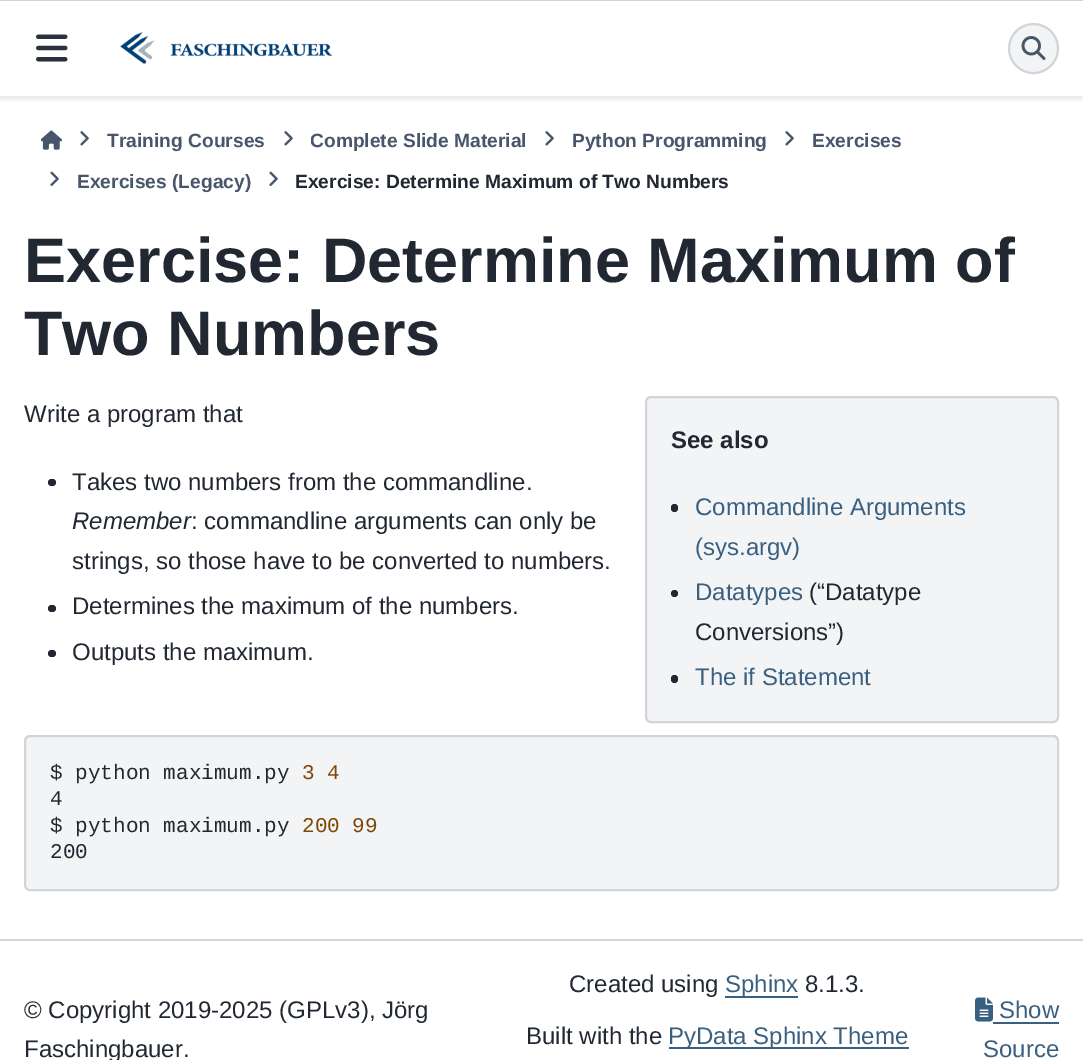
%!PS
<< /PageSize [1083 1060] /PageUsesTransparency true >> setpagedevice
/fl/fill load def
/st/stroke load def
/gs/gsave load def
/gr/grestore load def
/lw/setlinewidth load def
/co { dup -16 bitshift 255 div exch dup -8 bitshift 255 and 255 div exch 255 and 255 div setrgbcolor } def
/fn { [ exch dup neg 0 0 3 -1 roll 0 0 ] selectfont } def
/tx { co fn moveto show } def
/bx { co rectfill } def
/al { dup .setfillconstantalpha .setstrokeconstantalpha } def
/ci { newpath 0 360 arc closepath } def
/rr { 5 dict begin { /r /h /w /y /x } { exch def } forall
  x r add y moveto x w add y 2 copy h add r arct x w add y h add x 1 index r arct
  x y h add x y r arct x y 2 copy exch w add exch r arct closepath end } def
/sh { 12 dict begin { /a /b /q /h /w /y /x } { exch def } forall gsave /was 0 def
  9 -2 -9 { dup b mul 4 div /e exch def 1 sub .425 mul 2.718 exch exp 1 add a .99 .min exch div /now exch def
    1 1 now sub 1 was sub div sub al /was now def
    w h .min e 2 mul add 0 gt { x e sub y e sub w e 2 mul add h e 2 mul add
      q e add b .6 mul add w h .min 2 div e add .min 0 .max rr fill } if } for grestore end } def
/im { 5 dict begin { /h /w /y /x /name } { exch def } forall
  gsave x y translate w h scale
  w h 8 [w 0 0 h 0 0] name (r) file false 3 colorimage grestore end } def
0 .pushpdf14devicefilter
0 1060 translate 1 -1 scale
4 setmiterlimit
0 0 1083 1060 16#FFFFFF bx
gs
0 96 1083 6 rectclip
16#000000 co
0 3 1083 96 0 3 .1 sh
gr
(media/1.raw) 36 34 32 28 im
(media/2.raw) 120 32 212 32 im
16#F3F4F5 co
1033.5 48.5 24.5 ci gs fl gr
16#D1D5DA co
2 lw
st
(media/3.raw) 1021 36 25 24 im
0 0 1083 1 16#D1D5DA bx
(media/4.raw) 41 130 21 20 im
(media/5.raw) 80 131 9 15 im
(media/5.raw) 284 131 9 15 im
(media/5.raw) 545 131 9 15 im
(media/5.raw) 785 131 9 15 im
(media/6.raw) 50 171 9 15 im
(media/6.raw) 269 171 9 15 im
16#222832 co
48 479 8 7 3.5 rr fl
48 605 8 7 3.5 rr fl
48 650 8 7 3.5 rr fl
16#F3F4F5 co
646 397 412 325 5 rr gs fl gr
16#D1D5DA co
st
16#222832 co
671 504 7 8 3.5 rr fl
674.5 593.5 3.5 ci fl
671 675 7 8 3.5 rr fl
16#F3F4F5 co
25 736 1033 154 5 rr gs fl gr
16#D1D5DA co
st
0 939 1083 2 16#D1D5DA bx
725 996 73 2 16#3A6081 bx
669 1047 240 2 16#3A6081 bx
(media/7.raw) 975 997 18 25 im
993 1022 66 2 16#3A6081 bx
(Training Courses) 107 147 /LiberationSans-Bold 19.2 16#48566B tx
gs
311 125 216 31 rectclip
(Complete Slide Material) 310 147 /LiberationSans-Bold 19.2 16#48566B tx
gr
(Python Programming) 572 147 /LiberationSans-Bold 19.2 16#48566B tx
(Exercises) 812 147 /LiberationSans-Bold 19.2 16#48566B tx
(Exercises \(Legacy\)) 77 188 /LiberationSans-Bold 19.2 16#48566B tx
(Exercise: Determine Maximum of Two Numbers) 295 188 /LiberationSans-Bold 19.2 16#222832 tx
(Exercise: Determine Maximum of) 24 282 /LiberationSans-Bold 63 16#222832 tx
(Two Numbers) 24 355 /LiberationSans-Bold 63 16#222832 tx
(Write a program that) 24 422 /LiberationSans-Regular 24 16#222832 tx
(Takes two numbers from the commandline.) 72 490 /LiberationSans-Regular 24 16#222832 tx
(Remember) 72 529 /LiberationSans-Italic 24 16#222832 tx
(: commandline arguments can only be) 191 529 /LiberationSans-Regular 24 16#222832 tx
(strings, so those have to be converted to numbers.) 72 569 /LiberationSans-Regular 24 16#222832 tx
(Determines the maximum of the numbers.) 72 614 /LiberationSans-Regular 24 16#222832 tx
(Outputs the maximum.) 72 660 /LiberationSans-Regular 24 16#222832 tx
(See also) 671 448 /LiberationSans-Bold 24 16#222832 tx
(Commandline Arguments) 695 515 /LiberationSans-Regular 24 16#3A6081 tx
(\(sys.argv\)) 695 555 /LiberationSans-Regular 24 16#3A6081 tx
(Datatypes) 695 600 /LiberationSans-Regular 24 16#3A6081 tx
(\(“Datatype) 809 600 /LiberationSans-Regular 24 16#222832 tx
(Conversions”\)) 695 640 /LiberationSans-Regular 24 16#222832 tx
(The if Statement) 695 685 /LiberationSans-Regular 24 16#3A6081 tx
($ python maximum.py) 50 779 /LiberationMono-Regular 21 16#222832 tx
(3 4) 302 779 /LiberationMono-Regular 21 16#7F4707 tx
(4) 50 805 /LiberationMono-Regular 21 16#222832 tx
($ python maximum.py) 50 832 /LiberationMono-Regular 21 16#222832 tx
(200 99) 302 832 /LiberationMono-Regular 21 16#7F4707 tx
(200) 50 858 /LiberationMono-Regular 21 16#222832 tx
(© Copyright 2019-2025 \(GPLv3\), Jörg) 24 1018 /LiberationSans-Regular 24 16#222832 tx
(Faschingbauer.) 24 1057 /LiberationSans-Regular 24 16#222832 tx
(Created using) 569 992 /LiberationSans-Regular 24 16#222832 tx
(Sphinx) 725 992 /LiberationSans-Regular 24 16#3A6081 tx
(8.1.3.) 805 992 /LiberationSans-Regular 24 16#222832 tx
(Built with the) 526 1044 /LiberationSans-Regular 24 16#222832 tx
(PyData Sphinx Theme) 668 1044 /LiberationSans-Regular 24 16#3A6081 tx
(Show) 999 1018 /LiberationSans-Regular 24 16#3A6081 tx
(Source) 983 1057 /LiberationSans-Regular 24 16#3A6081 tx
.poppdf14devicefilter showpage
